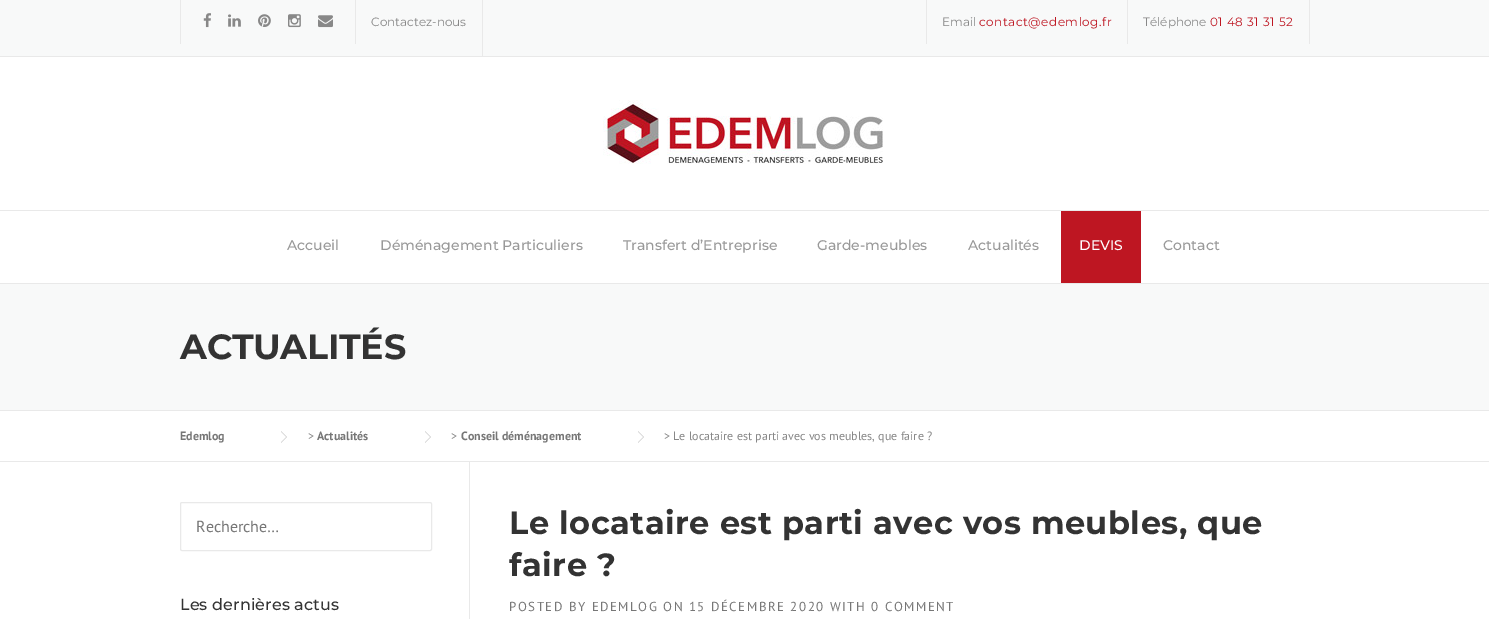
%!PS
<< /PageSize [1489 619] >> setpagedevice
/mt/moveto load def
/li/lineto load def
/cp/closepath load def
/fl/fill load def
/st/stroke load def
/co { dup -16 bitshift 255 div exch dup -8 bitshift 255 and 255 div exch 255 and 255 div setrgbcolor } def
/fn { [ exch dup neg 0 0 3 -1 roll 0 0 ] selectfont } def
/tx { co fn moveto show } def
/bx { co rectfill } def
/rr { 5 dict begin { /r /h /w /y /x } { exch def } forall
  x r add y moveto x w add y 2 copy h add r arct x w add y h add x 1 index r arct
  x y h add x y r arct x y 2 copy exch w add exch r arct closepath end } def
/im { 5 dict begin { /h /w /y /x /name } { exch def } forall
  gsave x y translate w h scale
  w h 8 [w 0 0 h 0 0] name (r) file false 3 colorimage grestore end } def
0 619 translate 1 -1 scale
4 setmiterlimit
0 0 1489 619 16#FFFFFF bx
0 0 1489 56 16#F8F9F9 bx
0 56 1489 1 16#E9E9E9 bx
355 0 1 44 16#E9E9E9 bx
180 0 1 44 16#E9E9E9 bx
(media/1.raw) 203 13 8 15 im
(media/2.raw) 228 14 13 13 im
(media/3.raw) 258 14 13 13 im
(media/4.raw) 288 14 13 14 im
(media/5.raw) 318 15 15 13 im
482 0 1 56 16#E9E9E9 bx
926 0 1 44 16#E9E9E9 bx
1309 0 1 44 16#E9E9E9 bx
1127 0 1 44 16#E9E9E9 bx
(media/6.raw) 603 100 280 64 im
0 210 1489 1 16#E9E9E9 bx
1061 211 80 72 16#BE1622 bx
0 284 1489 126 16#F8F9F9 bx
0 283 1489 1 16#E9E9E9 bx
0 410 1489 1 16#E9E9E9 bx
0 461 1489 1 16#E9E9E9 bx
16#CCCCCC co
281 443 mt 281 431 li 287 437 li cp fl
16#FFFFFF co
281 442 mt 281 432 li 286 437 li cp fl
16#CCCCCC co
425 443 mt 425 431 li 431 437 li cp fl
16#FFFFFF co
425 442 mt 425 432 li 430 437 li cp fl
16#CCCCCC co
638 443 mt 638 431 li 644 437 li cp fl
16#FFFFFF co
638 442 mt 638 432 li 643 437 li cp fl
16#E9E9E9 co
180.5 502.5 251 48 1.5 rr st
469 462 1 157 16#E9E9E9 bx
(Contactez-nous) 371 26 /Montserrat-Regular 12 16#888888 tx
(Email) 942 26 /Montserrat-Regular 12 16#888888 tx
16#BE1622 co
979 26 mt .5 0 (contact@edemlog.fr) ashow
(Téléphone) 1143 26 /Montserrat-Regular 12 16#888888 tx
16#BE1622 co
1210 26 mt .5 0 (01 48 31 31 52) ashow
(Accueil) 287 250 /Montserrat-Medium 14 16#999999 tx
(Déménagement Particuliers) 380 250 /Montserrat-Medium 14 16#999999 tx
(Transfert d’Entreprise) 623 250 /Montserrat-Medium 14 16#999999 tx
(Garde-meubles) 817 250 /Montserrat-Medium 14 16#999999 tx
(Actualités) 968 250 /Montserrat-Medium 14 16#999999 tx
(DEVIS) 1079 250 /Montserrat-Medium 14 16#FFFFFF tx
(Contact) 1163 250 /Montserrat-Medium 14 16#999999 tx
/Montserrat-Bold 35 fn
16#333333 co
180 359 mt -.25 0 (ACTUALITÉS) ashow
(Edemlog) 180 440 /PTSans-Bold 12 16#777777 tx
(>) 308 440 /PTSans-Regular 12 16#888888 tx
(Actualités) 317 440 /PTSans-Bold 12 16#777777 tx
(>) 451 440 /PTSans-Regular 12 16#888888 tx
(Conseil déménagement) 461 440 /PTSans-Bold 12 16#777777 tx
(> Le locataire est parti avec vos meubles, que faire ?) 664 440 /PTSans-Regular 12 16#888888 tx
(Recherche…) 196 532 /PTSans-Regular 16 16#777777 tx
/Montserrat-Medium 16 fn
16#333333 co
180 610 mt .1 0 (Les dernières actus) ashow
/Montserrat-Bold 32 fn
509 534 mt .5 0 (Le locataire est parti avec vos meubles, que) ashow
509 576 mt .5 0 (faire ?) ashow
/PTSans-Regular 13 fn
16#777777 co
509 611 mt 1.5 0 (POSTED BY EDEMLOG ON 15 DÉCEMBRE 2020 WITH 0 COMMENT) ashow
showpage
